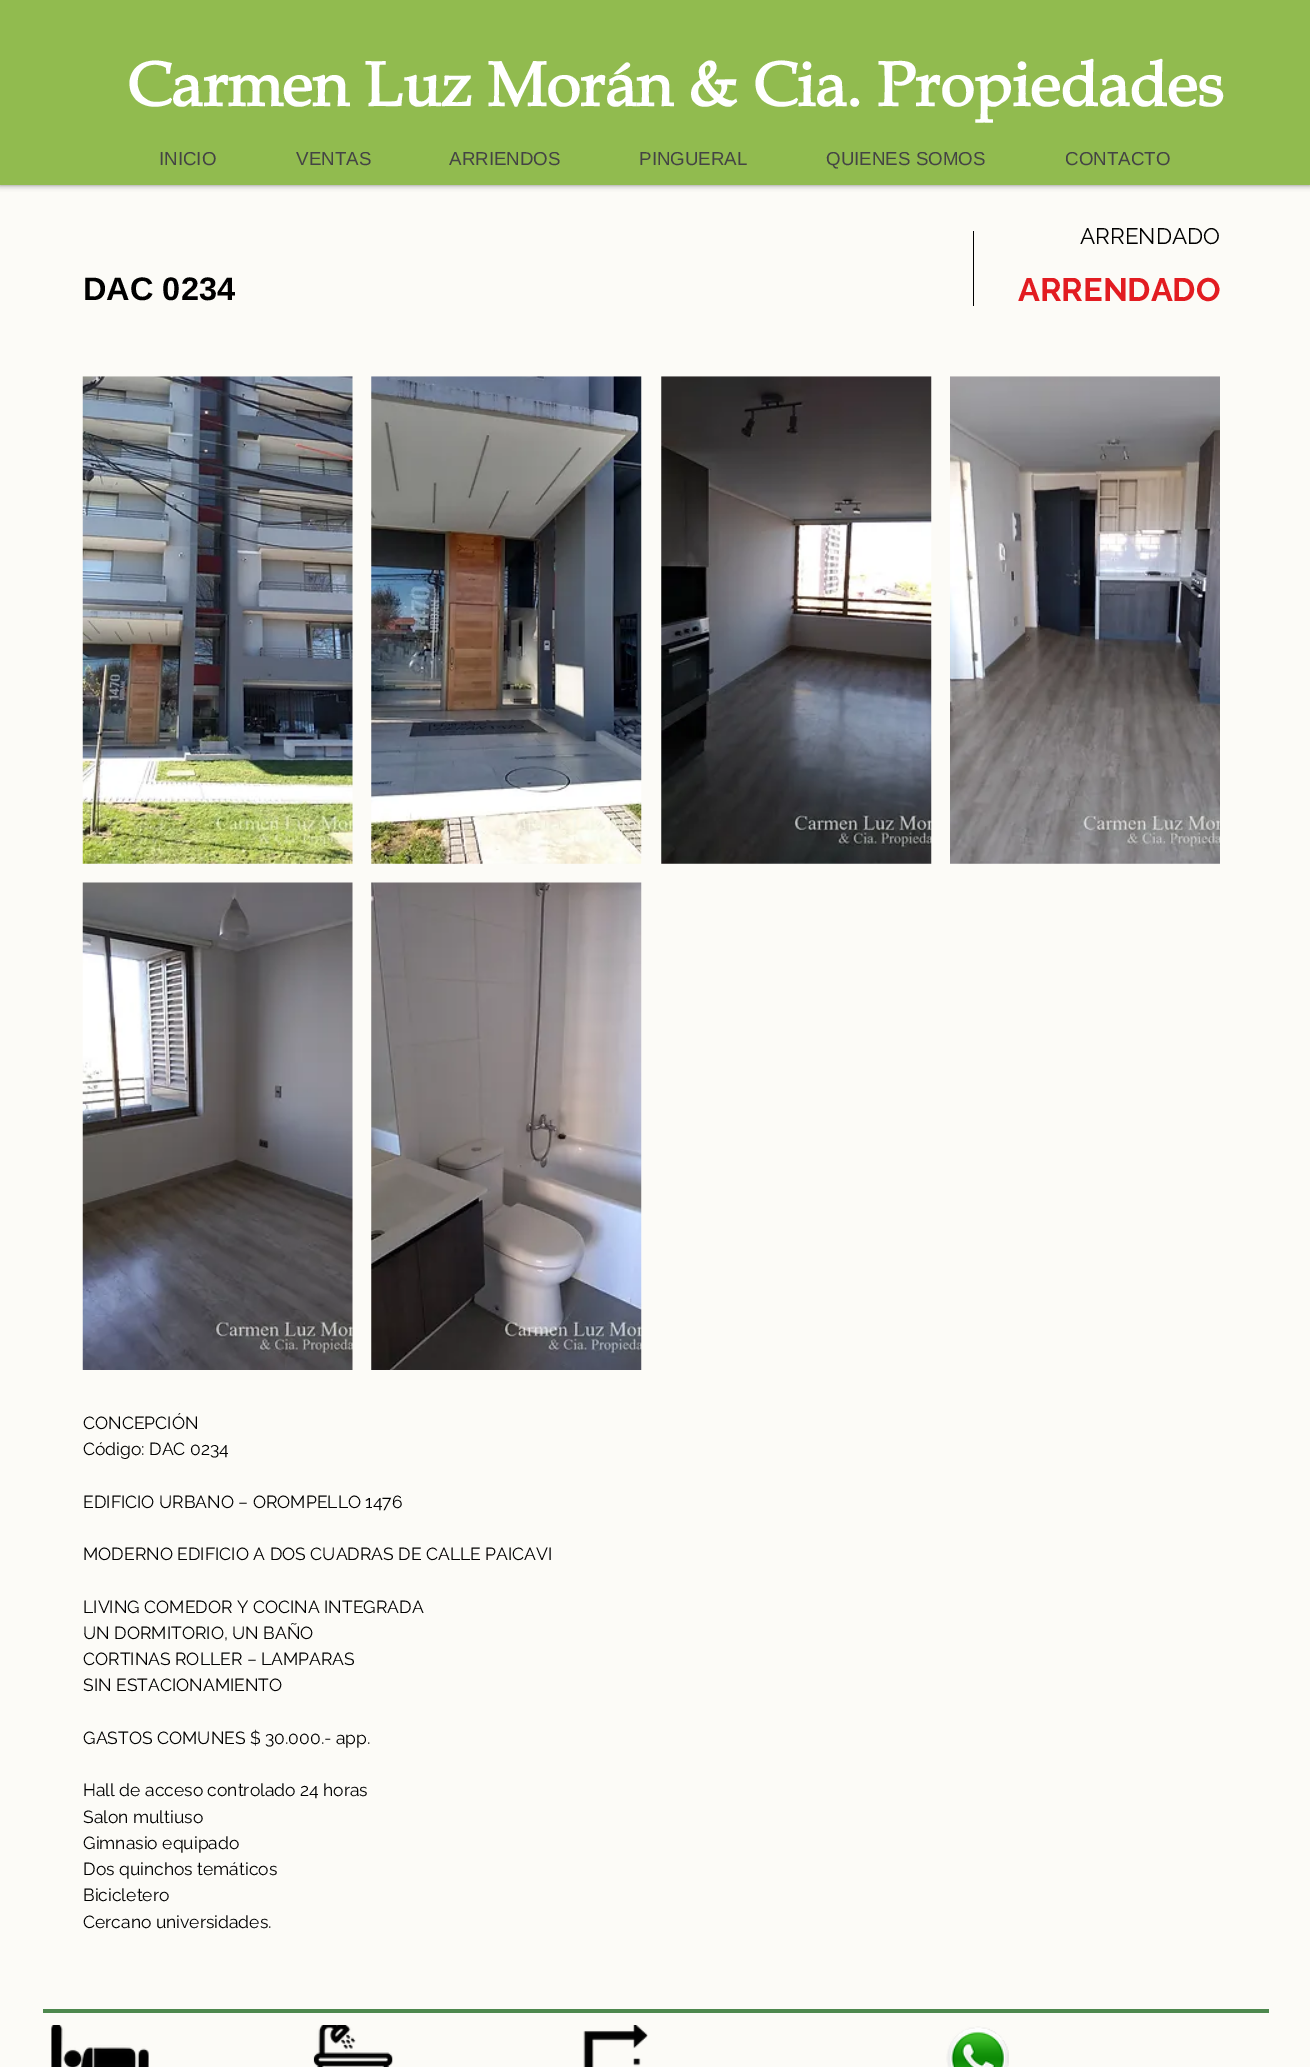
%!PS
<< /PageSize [1310 2067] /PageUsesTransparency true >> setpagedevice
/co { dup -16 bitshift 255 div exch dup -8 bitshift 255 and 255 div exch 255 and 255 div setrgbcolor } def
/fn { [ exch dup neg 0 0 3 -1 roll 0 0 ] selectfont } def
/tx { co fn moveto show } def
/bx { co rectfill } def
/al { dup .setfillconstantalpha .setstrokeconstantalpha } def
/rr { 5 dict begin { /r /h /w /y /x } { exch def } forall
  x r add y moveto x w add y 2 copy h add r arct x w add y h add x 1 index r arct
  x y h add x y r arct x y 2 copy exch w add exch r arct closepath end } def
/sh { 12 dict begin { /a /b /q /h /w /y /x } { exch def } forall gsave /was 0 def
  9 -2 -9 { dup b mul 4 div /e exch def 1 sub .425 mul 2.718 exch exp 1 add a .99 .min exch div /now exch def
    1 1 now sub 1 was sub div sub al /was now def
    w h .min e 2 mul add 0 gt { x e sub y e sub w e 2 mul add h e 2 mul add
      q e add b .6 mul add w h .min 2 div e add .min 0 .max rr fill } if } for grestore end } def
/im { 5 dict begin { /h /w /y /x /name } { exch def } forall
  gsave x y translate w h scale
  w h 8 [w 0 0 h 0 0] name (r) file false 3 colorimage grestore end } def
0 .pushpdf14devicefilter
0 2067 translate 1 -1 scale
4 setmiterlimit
0 0 1310 2067 16#FCFBF7 bx
16#000000 co
0 0 1310 185 0 3 .5 sh
0 0 1310 185 16#91BB4F bx
973 231 1 75 16#000000 bx
(media/1.raw) 82 376 271 488 im
(media/2.raw) 371 376 271 488 im
(media/3.raw) 661 376 271 488 im
(media/4.raw) 950 376 270 488 im
(media/5.raw) 82 882 271 488 im
(media/6.raw) 371 882 271 488 im
43 2009 1226 4 16#4D884E bx
(media/7.raw) 51 2025 98 42 im
(media/8.raw) 313 2025 80 42 im
(media/9.raw) 583 2025 65 42 im
(media/10.raw) 946 2026 63 41 im
(Carmen Luz Morán & Cia. Propiedades) 127 106 /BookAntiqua-Bold 62.5 16#FFFFFF tx
(INICIO) 159 165 /LiberationSans-Regular 18.75 16#444444 tx
(VENTAS) 296 165 /LiberationSans-Regular 18.75 16#444444 tx
(ARRIENDOS) 449 165 /LiberationSans-Regular 18.75 16#444444 tx
(PINGUERAL) 639 165 /LiberationSans-Regular 18.75 16#444444 tx
(QUIENES SOMOS) 826 165 /LiberationSans-Regular 18.75 16#444444 tx
(CONTACTO) 1065 165 /LiberationSans-Regular 18.75 16#444444 tx
(DAC 0234) 83 300 /LiberationSans-Bold 32.5 16#000000 tx
(ARRENDADO) 1080 244 /Raleway-Regular 22.5 16#000000 tx
(ARRENDADO) 1018 301 /Raleway-Bold 32.5 16#E21C21 tx
(CONCEPCIÓN) 83 1429 /Raleway-Regular 17.5 16#000000 tx
(Código: DAC 0234) 83 1455 /Raleway-Regular 17.5 16#000000 tx
(EDIFICIO URBANO – OROMPELLO 1476) 83 1508 /Raleway-Regular 17.5 16#000000 tx
(MODERNO EDIFICIO A DOS CUADRAS DE CALLE PAICAVI) 83 1560 /Raleway-Regular 17.5 16#000000 tx
(LIVING COMEDOR Y COCINA INTEGRADA) 83 1613 /Raleway-Regular 17.5 16#000000 tx
(UN DORMITORIO, UN BAÑO) 83 1639 /Raleway-Regular 17.5 16#000000 tx
(CORTINAS ROLLER – LAMPARAS) 83 1665 /Raleway-Regular 17.5 16#000000 tx
(SIN ESTACIONAMIENTO) 83 1691 /Raleway-Regular 17.5 16#000000 tx
(GASTOS COMUNES $ 30.000.- app.) 83 1744 /Raleway-Regular 17.5 16#000000 tx
(Hall de acceso controlado 24 horas) 83 1796 /Raleway-Regular 17.5 16#000000 tx
(Salon multiuso) 83 1823 /Raleway-Regular 17.5 16#000000 tx
(Gimnasio equipado) 83 1849 /Raleway-Regular 17.5 16#000000 tx
(Dos quinchos temáticos) 83 1875 /Raleway-Regular 17.5 16#000000 tx
(Bicicletero) 83 1901 /Raleway-Regular 17.5 16#000000 tx
(Cercano universidades.) 83 1928 /Raleway-Regular 17.5 16#000000 tx
.poppdf14devicefilter showpage
